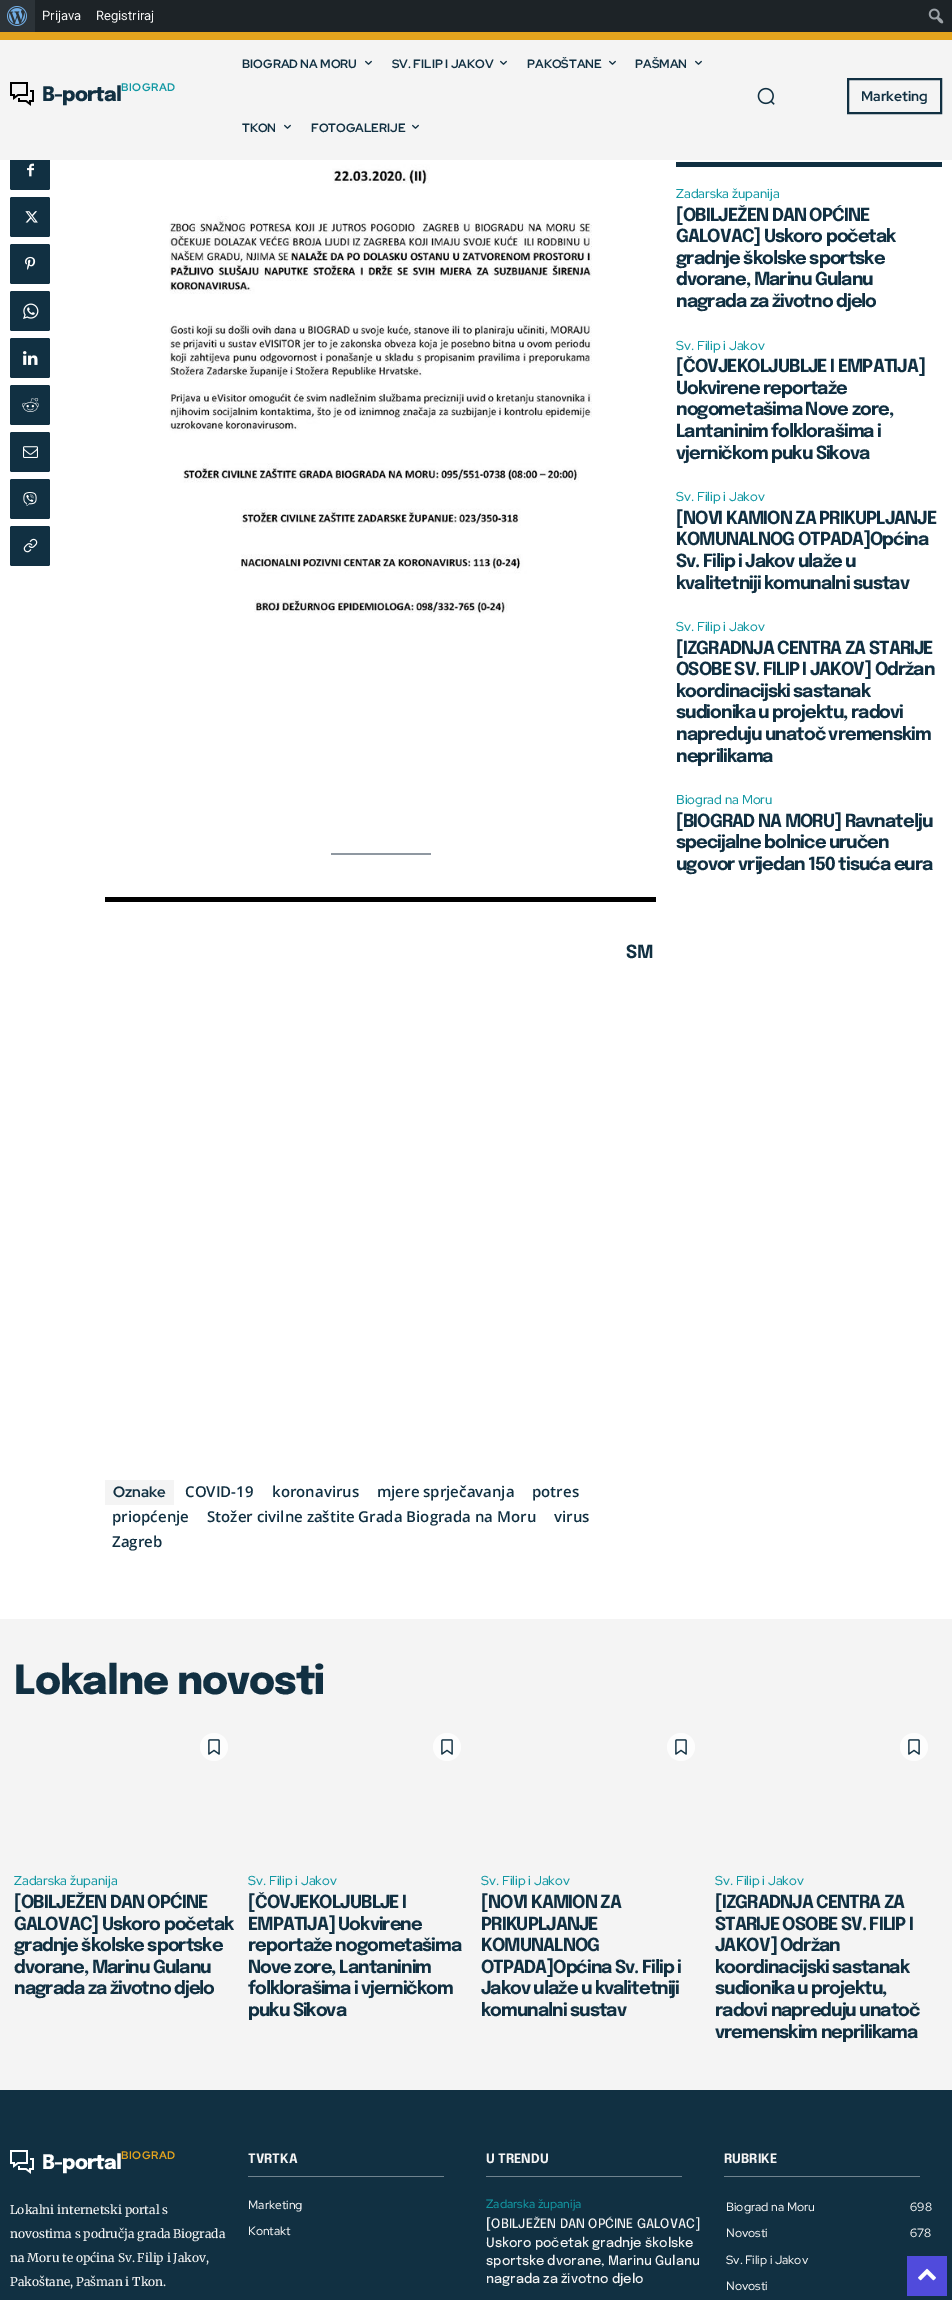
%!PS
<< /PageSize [952 2300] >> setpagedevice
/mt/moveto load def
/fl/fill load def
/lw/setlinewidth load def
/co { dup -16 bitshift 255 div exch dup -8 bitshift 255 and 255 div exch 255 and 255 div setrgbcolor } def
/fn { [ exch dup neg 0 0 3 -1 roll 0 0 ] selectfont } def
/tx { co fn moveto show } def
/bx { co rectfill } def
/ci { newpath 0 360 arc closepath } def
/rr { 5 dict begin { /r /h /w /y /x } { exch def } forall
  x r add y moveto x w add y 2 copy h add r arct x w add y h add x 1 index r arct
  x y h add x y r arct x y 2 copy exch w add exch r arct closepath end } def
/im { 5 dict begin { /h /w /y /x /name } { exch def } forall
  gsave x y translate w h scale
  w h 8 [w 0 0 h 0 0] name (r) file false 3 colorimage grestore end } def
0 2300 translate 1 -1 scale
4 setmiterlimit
0 0 952 2300 16#FFFFFF bx
35 0 917 32 16#1D2327 bx
0 0 35 32 16#2C3338 bx
(media/1.raw) 7 6 20 20 im
(media/2.raw) 928 8 16 16 im
0 32 952 8 16#E4A41E bx
16#113042 co
10 150 40 40 2 rr fl
0 40 952 120 16#F4F4F4 bx
(media/3.raw) 10 82 24 24 im
(media/4.raw) 365 60 7 5 im
(media/4.raw) 500 60 7 5 im
(media/4.raw) 609 60 7 5 im
(media/4.raw) 695 60 7 5 im
(media/4.raw) 284 124 7 5 im
(media/4.raw) 412 124 7 5 im
(media/5.raw) 757 87 18 18 im
16#113042 co
2 lw
848 79 93 34 rectstroke
(media/6.raw) 27 163 7 14 im
10 197 40 40 2 rr fl
(media/7.raw) 25 211 13 12 im
10 244 40 40 2 rr fl
(media/8.raw) 25 256 11 14 im
10 291 40 40 2 rr fl
(media/9.raw) 23 303 16 16 im
10 338 40 40 2 rr fl
(media/10.raw) 23 351 15 14 im
10 385 40 40 2 rr fl
(media/11.raw) 22 398 17 14 im
10 432 40 40 2 rr fl
(media/12.raw) 23 446 15 12 im
10 479 40 40 2 rr fl
(media/13.raw) 23 492 14 14 im
10 526 40 40 2 rr fl
(media/14.raw) 23 538 15 15 im
676 162 266 5 16#113042 bx
(media/15.raw) 169 160 423 454 im
331 853 100 2 16#8F98A1 bx
105 897 551 5 16#000000 bx
105 1480 69 25 16#F4F4F4 bx
0 1619 952 471 16#F4F4F4 bx
16#FDFDFD co
214 1747 14 ci fl
(media/16.raw) 208 1739 12 16 im
447 1747 14 ci fl
(media/16.raw) 441 1739 12 16 im
681 1747 14 ci fl
(media/16.raw) 675 1739 12 16 im
914 1747 14 ci fl
(media/16.raw) 908 1739 12 16 im
0 2090 952 210 16#113042 bx
(media/17.raw) 10 2150 24 24 im
248 2176 196 1 16#70838E bx
486 2176 196 1 16#70838E bx
724 2176 196 1 16#70838E bx
907 2256 40 40 16#504BDC bx
(media/18.raw) 918 2268 18 13 im
(Prijava) 42 20 /Roboto-Regular 13 16#F4F4F4 tx
(Registriraj) 96 20 /Roboto-Regular 13 16#F4F4F4 tx
/Epilogue-ExtraBold 20 fn
16#113042 co
42 101 mt -1 0 (B-portal) ashow
/RedHatDisplay-Bold 11 fn
16#1298A3 co
121 91 mt .5 0 (BIOGRAD) ashow
(BIOGRAD NA MORU) 242 68 /RedHatDisplay-Bold 12 16#113042 tx
(SV. FILIP I JAKOV) 392 68 /RedHatDisplay-Bold 12 16#113042 tx
(PAKOŠTANE) 527 68 /RedHatDisplay-Bold 12 16#113042 tx
(PAŠMAN) 635 68 /RedHatDisplay-Bold 12 16#113042 tx
(TKON) 242 132 /RedHatDisplay-Bold 12 16#113042 tx
(FOTOGALERIJE) 311 132 /RedHatDisplay-Bold 12 16#113042 tx
(Marketing) 861 101 /RedHatDisplay-Bold 14 16#113042 tx
(Zadarska županija) 676 198 /RedHatDisplay-Medium 13 16#1298A3 tx
/Epilogue-Bold 18 fn
16#113042 co
676 221 mt -1 0 ([OBILJEŽEN DAN OPĆINE) ashow
676 242 mt -1 0 (GALOVAC] Uskoro početak) ashow
676 264 mt -1 0 (gradnje školske sportske) ashow
676 285 mt -1 0 (dvorane, Marinu Gulanu) ashow
676 307 mt -1 0 (nagrada za životno djelo) ashow
(Sv. Filip i Jakov) 676 350 /RedHatDisplay-Medium 13 16#1298A3 tx
/Epilogue-Bold 18 fn
16#113042 co
676 372 mt -1 0 ([ČOVJEKOLJUBLJE I EMPATIJA]) ashow
676 394 mt -1 0 (Uokvirene reportaže) ashow
676 415 mt -1 0 (nogometašima Nove zore,) ashow
676 437 mt -1 0 (Lantaninim folklorašima i) ashow
676 459 mt -1 0 (vjerničkom puku Sikova) ashow
(Sv. Filip i Jakov) 676 501 /RedHatDisplay-Medium 13 16#1298A3 tx
/Epilogue-Bold 18 fn
16#113042 co
676 524 mt -1 0 ([NOVI KAMION ZA PRIKUPLJANJE) ashow
676 545 mt -1 0 (KOMUNALNOG OTPADA]Općina) ashow
676 567 mt -1 0 (Sv. Filip i Jakov ulaže u) ashow
676 589 mt -1 0 (kvalitetniji komunalni sustav) ashow
(Sv. Filip i Jakov) 676 631 /RedHatDisplay-Medium 13 16#1298A3 tx
/Epilogue-Bold 18 fn
16#113042 co
676 654 mt -1 0 ([IZGRADNJA CENTRA ZA STARIJE) ashow
676 675 mt -1 0 (OSOBE SV. FILIP I JAKOV] Održan) ashow
676 697 mt -1 0 (koordinacijski sastanak) ashow
676 718 mt -1 0 (sudionika u projektu, radovi) ashow
676 740 mt -1 0 (napreduju unatoč vremenskim) ashow
676 762 mt -1 0 (neprilikama) ashow
(Biograd na Moru) 676 804 /RedHatDisplay-Medium 13 16#1298A3 tx
/Epilogue-Bold 18 fn
16#113042 co
676 827 mt -1 0 ([BIOGRAD NA MORU] Ravnatelju) ashow
676 848 mt -1 0 (specijalne bolnice uručen) ashow
676 870 mt -1 0 (ugovor vrijedan 150 tisuća eura) ashow
(SM) 626 958 /Epilogue-Bold 18 16#113042 tx
(Oznake) 113 1497 /RedHatDisplay-Bold 15 16#113042 tx
(COVID-19) 185 1497 /OpenSans-SemiBold 15 16#113042 tx
(koronavirus) 272 1497 /OpenSans-SemiBold 15 16#113042 tx
(mjere sprječavanja) 377 1497 /OpenSans-SemiBold 15 16#113042 tx
(potres) 532 1497 /OpenSans-SemiBold 15 16#113042 tx
(priopćenje) 112 1522 /OpenSans-SemiBold 15 16#113042 tx
(Stožer civilne zaštite Grada Biograda na Moru) 207 1522 /OpenSans-SemiBold 15 16#113042 tx
(virus) 554 1522 /OpenSans-SemiBold 15 16#113042 tx
(Zagreb) 112 1547 /OpenSans-SemiBold 15 16#113042 tx
/Epilogue-ExtraBold 40 fn
14 1694 mt -1 0 (Lokalne novosti) ashow
(Zadarska županija) 14 1885 /RedHatDisplay-Medium 13 16#1298A3 tx
/Epilogue-Bold 18 fn
16#113042 co
14 1908 mt -1 0 ([OBILJEŽEN DAN OPĆINE) ashow
14 1930 mt -1 0 (GALOVAC] Uskoro početak) ashow
14 1951 mt -1 0 (gradnje školske sportske) ashow
14 1973 mt -1 0 (dvorane, Marinu Gulanu) ashow
14 1994 mt -1 0 (nagrada za životno djelo) ashow
(Sv. Filip i Jakov) 248 1885 /RedHatDisplay-Medium 13 16#1298A3 tx
/Epilogue-Bold 18 fn
16#113042 co
248 1908 mt -1 0 ([ČOVJEKOLJUBLJE I) ashow
248 1930 mt -1 0 (EMPATIJA] Uokvirene) ashow
248 1951 mt -1 0 (reportaže nogometašima) ashow
248 1973 mt -1 0 (Nove zore, Lantaninim) ashow
248 1994 mt -1 0 (folklorašima i vjerničkom) ashow
248 2016 mt -1 0 (puku Sikova) ashow
(Sv. Filip i Jakov) 481 1885 /RedHatDisplay-Medium 13 16#1298A3 tx
/Epilogue-Bold 18 fn
16#113042 co
481 1908 mt -1 0 ([NOVI KAMION ZA) ashow
481 1930 mt -1 0 (PRIKUPLJANJE) ashow
481 1951 mt -1 0 (KOMUNALNOG) ashow
481 1973 mt -1 0 (OTPADA]Općina Sv. Filip i) ashow
481 1994 mt -1 0 (Jakov ulaže u kvalitetniji) ashow
481 2016 mt -1 0 (komunalni sustav) ashow
(Sv. Filip i Jakov) 715 1885 /RedHatDisplay-Medium 13 16#1298A3 tx
/Epilogue-Bold 18 fn
16#113042 co
715 1908 mt -1 0 ([IZGRADNJA CENTRA ZA) ashow
715 1930 mt -1 0 (STARIJE OSOBE SV. FILIP I) ashow
715 1951 mt -1 0 (JAKOV] Održan) ashow
715 1973 mt -1 0 (koordinacijski sastanak) ashow
715 1994 mt -1 0 (sudionika u projektu,) ashow
715 2016 mt -1 0 (radovi napreduju unatoč) ashow
715 2038 mt -1 0 (vremenskim neprilikama) ashow
/Epilogue-ExtraBold 20 fn
16#FFFFFF co
42 2169 mt -1 0 (B-portal) ashow
/RedHatDisplay-Bold 11 fn
16#E4A41E co
121 2159 mt .5 0 (BIOGRAD) ashow
(Lokalni internetski portal s) 10 2214 /Merriweather-Medium 12 16#F4F4F4 tx
(novostima s područja grada Biograda) 10 2238 /Merriweather-Medium 12 16#F4F4F4 tx
(na Moru te općina Sv. Filip i Jakov,) 10 2262 /Merriweather-Medium 12 16#F4F4F4 tx
(Pakoštane, Pašman i Tkon.) 10 2286 /Merriweather-Medium 12 16#F4F4F4 tx
(TVRTKA) 248 2163 /Epilogue-Bold 13 16#F4F4F4 tx
(Marketing) 248 2209 /RedHatDisplay-Medium 12 16#F4F4F4 tx
(Kontakt) 248 2235 /RedHatDisplay-Medium 12 16#F4F4F4 tx
(U TRENDU) 486 2163 /Epilogue-Bold 13 16#F4F4F4 tx
(Zadarska županija) 486 2208 /RedHatDisplay-Medium 12 16#1298A3 tx
([OBILJEŽEN DAN OPĆINE GALOVAC]) 486 2228 /Epilogue-Medium 13 16#F4F4F4 tx
(Uskoro početak gradnje školske) 486 2247 /Epilogue-Medium 13 16#F4F4F4 tx
(sportske dvorane, Marinu Gulanu) 486 2265 /Epilogue-Medium 13 16#F4F4F4 tx
(nagrada za životno djelo) 486 2283 /Epilogue-Medium 13 16#F4F4F4 tx
(RUBRIKE) 724 2163 /Epilogue-Bold 13 16#F4F4F4 tx
(Biograd na Moru) 726 2211 /RedHatDisplay-Medium 12 16#F4F4F4 tx
(698) 910 2211 /RedHatDisplay-Medium 12 16#F4F4F4 tx
(Novosti) 726 2237 /RedHatDisplay-Medium 12 16#F4F4F4 tx
(678) 910 2237 /RedHatDisplay-Medium 12 16#F4F4F4 tx
(Sv. Filip i Jakov) 726 2264 /RedHatDisplay-Medium 12 16#F4F4F4 tx
(Novosti) 726 2290 /RedHatDisplay-Medium 12 16#F4F4F4 tx
showpage
